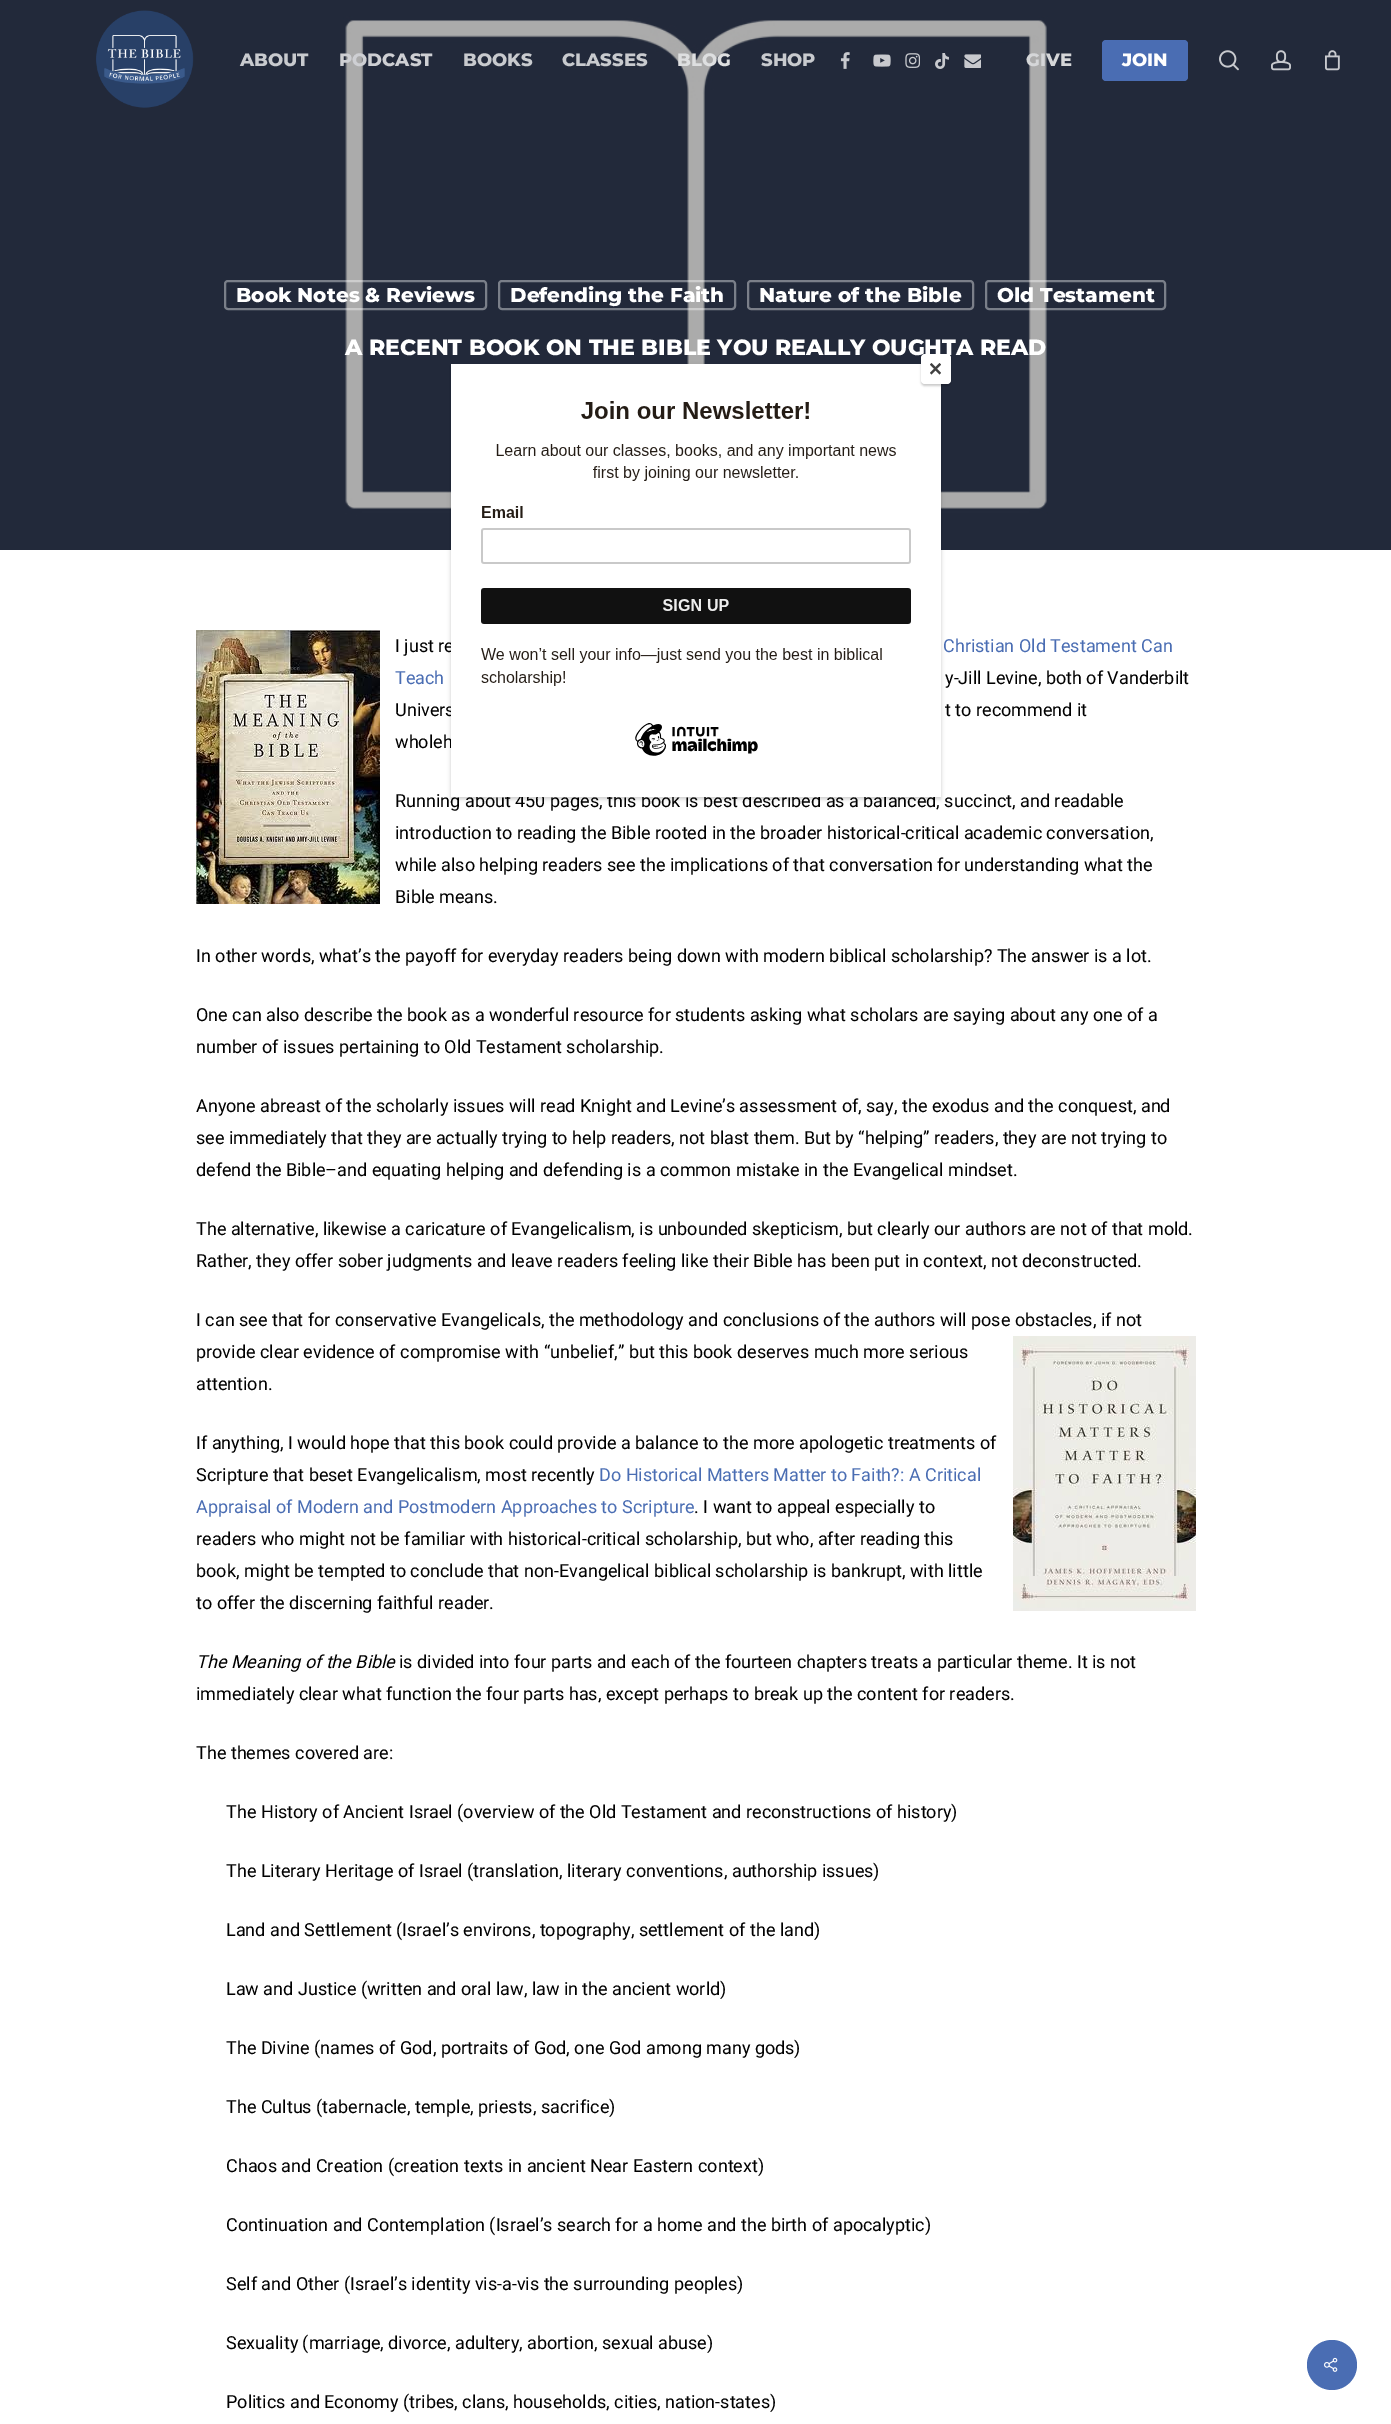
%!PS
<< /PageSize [1391 2424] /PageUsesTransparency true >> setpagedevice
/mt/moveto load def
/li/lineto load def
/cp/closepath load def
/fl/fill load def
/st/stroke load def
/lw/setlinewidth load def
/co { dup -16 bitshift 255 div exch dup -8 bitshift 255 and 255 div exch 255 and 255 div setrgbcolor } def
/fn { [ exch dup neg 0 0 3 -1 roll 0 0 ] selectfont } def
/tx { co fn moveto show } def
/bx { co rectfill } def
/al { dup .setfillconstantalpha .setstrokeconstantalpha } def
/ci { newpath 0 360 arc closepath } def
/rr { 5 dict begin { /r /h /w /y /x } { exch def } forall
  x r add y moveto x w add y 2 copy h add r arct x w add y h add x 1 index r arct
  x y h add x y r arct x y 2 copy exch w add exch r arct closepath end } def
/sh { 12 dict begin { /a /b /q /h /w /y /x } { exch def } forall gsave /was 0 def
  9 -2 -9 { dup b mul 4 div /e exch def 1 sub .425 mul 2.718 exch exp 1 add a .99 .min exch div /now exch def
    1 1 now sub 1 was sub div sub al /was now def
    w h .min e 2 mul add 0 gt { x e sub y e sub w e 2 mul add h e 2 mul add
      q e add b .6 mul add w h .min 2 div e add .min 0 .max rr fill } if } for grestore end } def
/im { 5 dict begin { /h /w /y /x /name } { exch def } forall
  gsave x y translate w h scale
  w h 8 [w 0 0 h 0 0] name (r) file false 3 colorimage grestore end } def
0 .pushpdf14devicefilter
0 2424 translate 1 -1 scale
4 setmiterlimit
0 0 1391 2424 16#FFFFFF bx
(media/10.raw) 0 0 1391 550 im
(media/1.raw) 96 10 98 98 im
(media/2.raw) 840 52 10 17 im
(media/3.raw) 873 54 18 13 im
(media/4.raw) 905 53 15 15 im
(media/5.raw) 935 53 14 16 im
(media/6.raw) 964 54 17 14 im
16#4A6DB3 co
1102 40 86 41 4 rr fl
(media/7.raw) 1219 50 20 21 im
(media/8.raw) 1271 50 20 21 im
(media/9.raw) 1325 50 15 21 im
0.4 al
16#FFFFFF co
2 lw
225 281 261 28 3 rr st
499 281 236 28 3 rr st
1 al
16#7B7F89 co
748 281 225 28 3 rr st
0.4 al
16#FFFFFF co
986 281 179 28 3 rr st
1 al
(media/11.raw) 196 630 184 274 im
(media/12.raw) 1013 1336 183 275 im
16#4A6DB3 co
1332 2365 25 ci fl
(media/13.raw) 1324 2357 14 15 im
16#000000 co
451 366 490 433 0 2 .2 sh
(ABOUT) 240 66 /Montserrat-ExtraBold 18 16#C8CACE tx
(PODCAST) 339 66 /Montserrat-ExtraBold 18 16#CECFD3 tx
(BOOKS) 463 66 /Montserrat-ExtraBold 18 16#C8CACE tx
(CLASSES) 562 66 /Montserrat-ExtraBold 18 16#C8CACE tx
(BLOG) 677 66 /Montserrat-ExtraBold 18 16#DEDFE0 tx
(SHOP) 761 66 /Montserrat-ExtraBold 18 16#C8CACE tx
(GIVE) 1026 66 /Montserrat-ExtraBold 18 16#D5D6D8 tx
(JOIN) 1122 66 /Montserrat-ExtraBold 18 16#FFFFFF tx
(Book Notes & Reviews) 236 302 /Montserrat-ExtraBold 20 16#FFFFFF tx
(Defending the Faith) 510 302 /Montserrat-ExtraBold 20 16#FFFFFF tx
(Nature of the Bible) 759 302 /Montserrat-ExtraBold 20 16#FFFFFF tx
(Old Testament) 997 302 /Montserrat-ExtraBold 20 16#FFFFFF tx
(A RECENT BOOK ON THE BIBLE YOU REALLY OUGHTA READ) 345 355 /Montserrat-ExtraBold 22 16#FFFFFF tx
(I just re) 395 652 /Roboto-Regular 18 16#000000 tx
(Christian Old Testament Can) 943 652 /Roboto-Regular 18 16#4A6DB3 tx
(Teach) 395 684 /Roboto-Regular 18 16#4A6DB3 tx
(y-Jill Levine, both of Vanderbilt) 945 684 /Roboto-Regular 18 16#000000 tx
(Univers) 395 716 /Roboto-Regular 18 16#000000 tx
(t to recommend it) 945 716 /Roboto-Regular 18 16#000000 tx
(wholeh) 395 748 /Roboto-Regular 18 16#000000 tx
(Running about 450 pages, this book is best described as a balanced, succinct, and readable) 395 807 /Roboto-Regular 18 16#000000 tx
(introduction to reading the Bible rooted in the broader historical-critical academic conversation,) 395 839 /Roboto-Regular 18 16#000000 tx
(while also helping readers see the implications of that conversation for understanding what the) 395 871 /Roboto-Regular 18 16#000000 tx
(Bible means.) 395 903 /Roboto-Regular 18 16#000000 tx
(In other words, what’s the payoff for everyday readers being down with modern biblical scholarship? The answer is a lot.) 196 962 /Roboto-Regular 18 16#000000 tx
(One can also describe the book as a wonderful resource for students asking what scholars are saying about any one of a) 196 1021 /Roboto-Regular 18 16#000000 tx
(number of issues pertaining to Old Testament scholarship.) 196 1053 /Roboto-Regular 18 16#000000 tx
(Anyone abreast of the scholarly issues will read Knight and Levine’s assessment of, say, the exodus and the conquest, and) 196 1112 /Roboto-Regular 18 16#000000 tx
(see immediately that they are actually trying to help readers, not blast them. But by “helping” readers, they are not trying to) 196 1144 /Roboto-Regular 18 16#000000 tx
(defend the Bible–and equating helping and defending is a common mistake in the Evangelical mindset.) 196 1176 /Roboto-Regular 18 16#000000 tx
(The alternative, likewise a caricature of Evangelicalism, is unbounded skepticism, but clearly our authors are not of that mold.) 196 1235 /Roboto-Regular 18 16#000000 tx
(Rather, they offer sober judgments and leave readers feeling like their Bible has been put in context, not deconstructed.) 196 1267 /Roboto-Regular 18 16#000000 tx
(I can see that for conservative Evangelicals, the methodology and conclusions of the authors will pose obstacles, if not) 196 1326 /Roboto-Regular 18 16#000000 tx
(provide clear evidence of compromise with “unbelief,” but this book deserves much more serious) 196 1358 /Roboto-Regular 18 16#000000 tx
(attention.) 196 1390 /Roboto-Regular 18 16#000000 tx
(If anything, I would hope that this book could provide a balance to the more apologetic treatments of) 196 1449 /Roboto-Regular 18 16#000000 tx
(Scripture that beset Evangelicalism, most recently) 196 1481 /Roboto-Regular 18 16#000000 tx
(Do Historical Matters Matter to Faith?: A Critical) 599 1481 /Roboto-Regular 18 16#4A6DB3 tx
(Appraisal of Modern and Postmodern Approaches to Scripture) 196 1513 /Roboto-Regular 18 16#4A6DB3 tx
(. I want to appeal especially to) 694 1513 /Roboto-Regular 18 16#000000 tx
(readers who might not be familiar with historical-critical scholarship, but who, after reading this) 196 1545 /Roboto-Regular 18 16#000000 tx
(book, might be tempted to conclude that non-Evangelical biblical scholarship is bankrupt, with little) 196 1577 /Roboto-Regular 18 16#000000 tx
(to offer the discerning faithful reader.) 196 1609 /Roboto-Regular 18 16#000000 tx
(The Meaning of the Bible) 196 1668 /Roboto-Italic 18 16#000000 tx
(is divided into four parts and each of the fourteen chapters treats a particular theme. It is not) 399 1668 /Roboto-Regular 18 16#000000 tx
(immediately clear what function the four parts has, except perhaps to break up the content for readers.) 196 1700 /Roboto-Regular 18 16#000000 tx
(The themes covered are:) 196 1759 /Roboto-Regular 18 16#000000 tx
(The History of Ancient Israel \(overview of the Old Testament and reconstructions of history\)) 226 1818 /Roboto-Regular 18 16#000000 tx
(The Literary Heritage of Israel \(translation, literary conventions, authorship issues\)) 226 1877 /Roboto-Regular 18 16#000000 tx
(Land and Settlement \(Israel’s environs, topography, settlement of the land\)) 226 1936 /Roboto-Regular 18 16#000000 tx
(Law and Justice \(written and oral law, law in the ancient world\)) 226 1995 /Roboto-Regular 18 16#000000 tx
(The Divine \(names of God, portraits of God, one God among many gods\)) 226 2054 /Roboto-Regular 18 16#000000 tx
(The Cultus \(tabernacle, temple, priests, sacrifice\)) 226 2113 /Roboto-Regular 18 16#000000 tx
(Chaos and Creation \(creation texts in ancient Near Eastern context\)) 226 2172 /Roboto-Regular 18 16#000000 tx
(Continuation and Contemplation \(Israel’s search for a home and the birth of apocalyptic\)) 226 2231 /Roboto-Regular 18 16#000000 tx
(Self and Other \(Israel’s identity vis-a-vis the surrounding peoples\)) 226 2290 /Roboto-Regular 18 16#000000 tx
(Sexuality \(marriage, divorce, adultery, abortion, sexual abuse\)) 226 2349 /Roboto-Regular 18 16#000000 tx
(Politics and Economy \(tribes, clans, households, cities, nation-states\)) 226 2408 /Roboto-Regular 18 16#000000 tx
(media/14.raw) 451 364 490 433 im
921 356 30 30 4 1 .2 sh
16#FFFFFF co
921 354 30 30 4 rr fl
16#414141 co
939.5 363 mt 941 364.5 li 931.5 374.5 li 930 373 li cp fl
930 364.5 mt 931.5 363 li 941 373 li 939.5 374.5 li cp fl
.poppdf14devicefilter showpage
